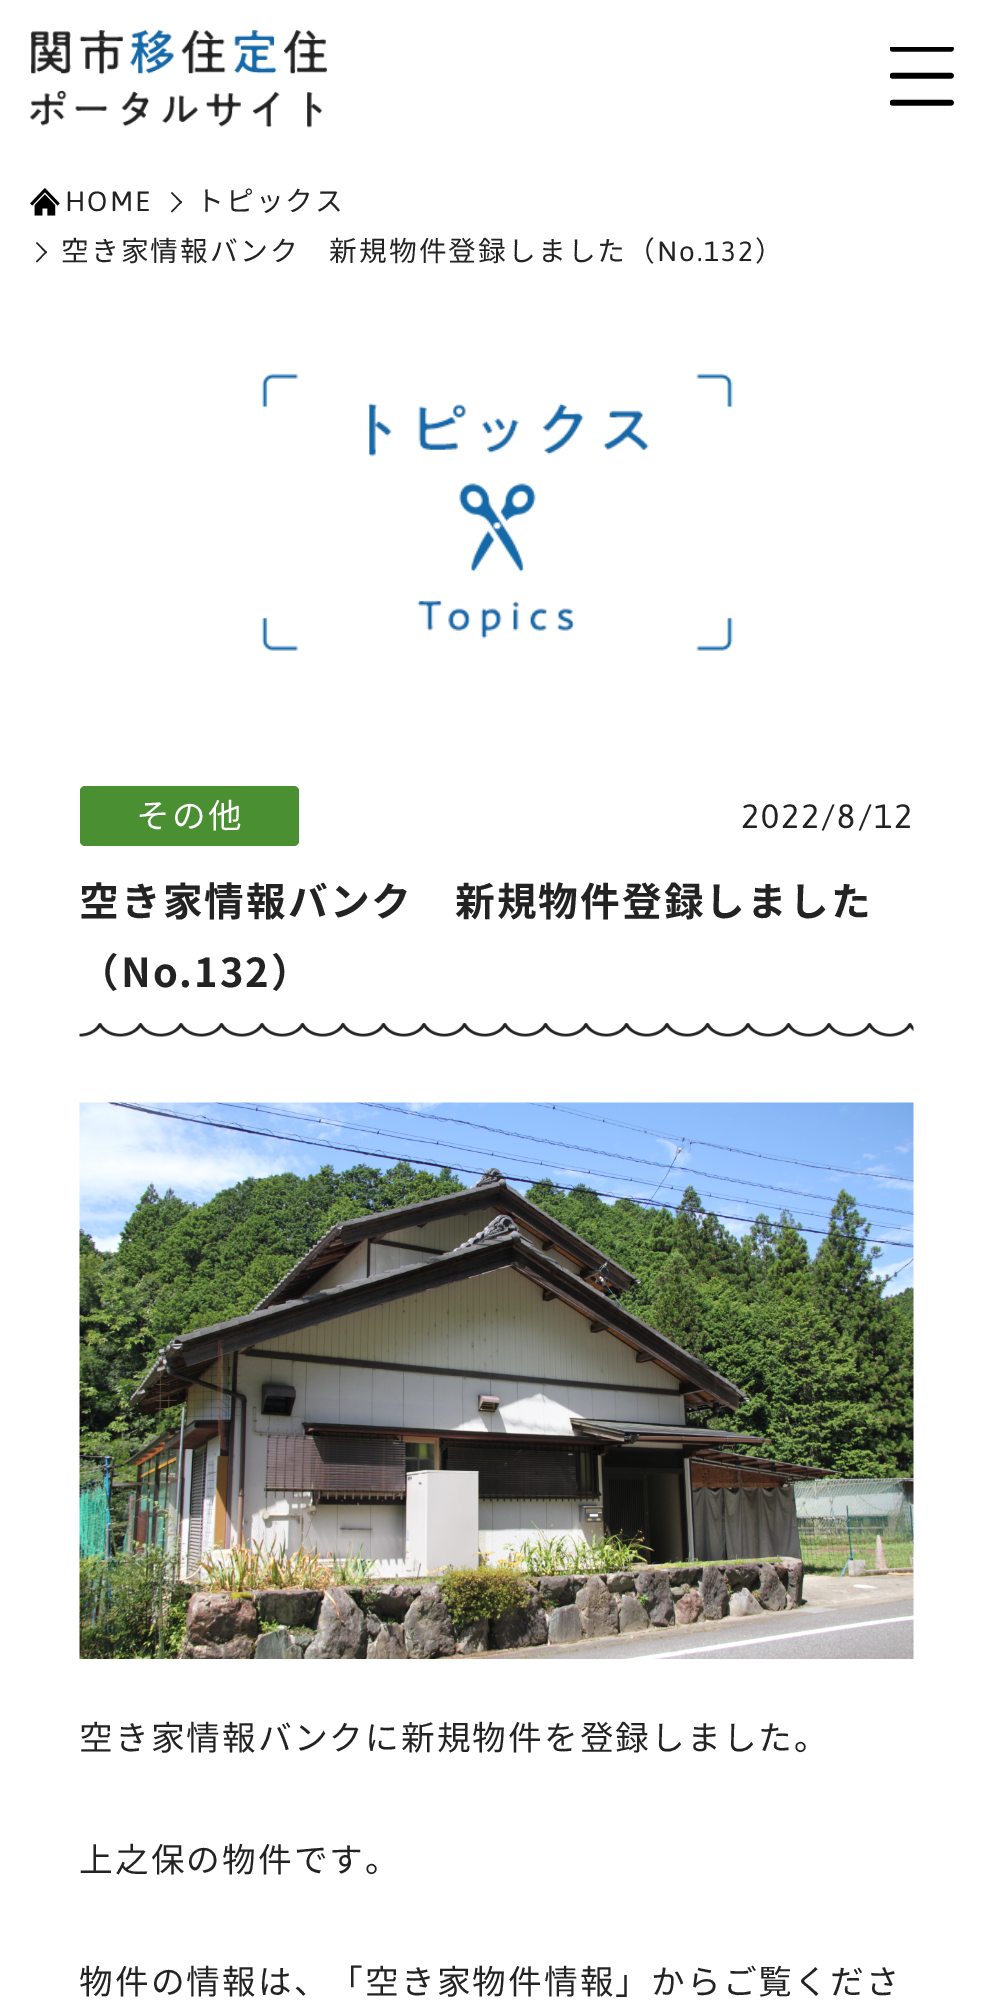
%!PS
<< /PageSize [993 2008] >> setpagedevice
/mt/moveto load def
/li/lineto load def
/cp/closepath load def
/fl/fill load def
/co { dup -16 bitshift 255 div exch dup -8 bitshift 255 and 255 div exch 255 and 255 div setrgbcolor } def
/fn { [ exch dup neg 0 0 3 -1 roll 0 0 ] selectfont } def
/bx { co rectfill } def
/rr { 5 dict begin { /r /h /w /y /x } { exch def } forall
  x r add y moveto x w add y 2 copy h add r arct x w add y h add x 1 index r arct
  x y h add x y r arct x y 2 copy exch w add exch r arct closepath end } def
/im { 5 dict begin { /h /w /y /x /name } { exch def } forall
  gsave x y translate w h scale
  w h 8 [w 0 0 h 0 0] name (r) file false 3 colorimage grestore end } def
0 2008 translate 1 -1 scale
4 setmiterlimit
0 0 993 2008 16#FFFFFF bx
(media/1.raw) 30 30 297 98 im
(media/2.raw) 890 47 64 59 im
(media/3.raw) 30 188 30 28 im
16#232323 co
172 192 mt 182 202 li 181 203.5 li 171 193 li cp fl
181 201 mt 182 202 li 172 212.5 li 171 211.5 li cp fl
37 242 mt 47 252 li 46 253.5 li 36 243 li cp fl
46 251 mt 47 252 li 37 262.5 li 36 261.5 li cp fl
(media/4.raw) 262 373 471 278 im
16#4A8F32 co
80 786 219 60 5 rr fl
(media/5.raw) 79 1023 835 14 im
(media/6.raw) 79 1102 835 557 im
/Asap-Regular 27.8 fn
16#232323 co
65 211 mt 2 0 (HOME) ashow
/NotoSansJP-Regular 27.8 fn
196 211 mt 2 0 (トピックス) ashow
61 261 mt 2 0 (空き家情報バンク　新規物件登録しました（) ashow
/Asap-Regular 27.8 fn
657 261 mt 2 0 (No.132) ashow
/NotoSansJP-Regular 27.8 fn
755 261 mt 2 0 (）) ashow
/NotoSansJP-Regular 33.75 fn
16#FFFFFF co
136 828 mt 2 0 (その他) ashow
/Asap-Regular 33.75 fn
16#232323 co
741 828 mt 2 0 (2022/8/12) ashow
/NotoSansJP-Bold 39.75 fn
79 916 mt 2 0 (空き家情報バンク　新規物件登録しました) ashow
79 987 mt 2 0 (（No.132）) ashow
/NotoSansJP-Regular 33.75 fn
79 1750 mt 2 0 (空き家情報バンクに新規物件を登録しました。) ashow
79 1872 mt 2 0 (上之保の物件です。) ashow
79 1994 mt 2 0 (物件の情報は、「空き家物件情報」からご覧くださ) ashow
showpage
